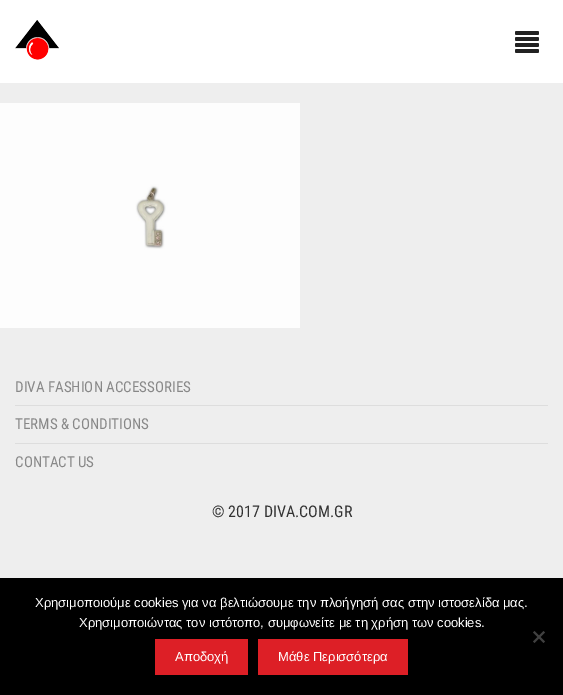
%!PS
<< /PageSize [563 695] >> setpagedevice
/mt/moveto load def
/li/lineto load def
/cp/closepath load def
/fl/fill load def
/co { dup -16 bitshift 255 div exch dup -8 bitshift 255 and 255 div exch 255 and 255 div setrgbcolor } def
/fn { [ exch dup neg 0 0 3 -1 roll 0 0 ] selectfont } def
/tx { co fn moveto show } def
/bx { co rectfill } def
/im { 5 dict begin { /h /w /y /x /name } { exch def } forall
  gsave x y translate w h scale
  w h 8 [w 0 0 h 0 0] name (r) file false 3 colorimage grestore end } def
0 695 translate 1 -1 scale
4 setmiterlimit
0 0 563 695 16#EEEEEE bx
0 0 563 83 16#FFFFFF bx
(media/1.raw) 15 20 44 40 im
(media/2.raw) 515 31 24 22 im
(media/3.raw) 0 103 300 225 im
15 405 533 1 16#DDDDDD bx
15 443 533 1 16#DDDDDD bx
0 578 563 117 16#000000 bx
16#404040 co
543.5 631 mt 545 632.5 li 534.5 643 li 533 641.5 li cp fl
533 632.5 mt 534.5 631 li 545 641.5 li 543.5 643 li cp fl
155 639 93 36 16#DD1F26 bx
258 639 150 36 16#DD1F26 bx
(DIVA FASHION ACCESSORIES) 15 392 /RobotoCondensed-Regular 15 16#888888 tx
(TERMS & CONDITIONS) 15 429 /RobotoCondensed-Regular 15 16#888888 tx
(CONTACT US) 15 467 /RobotoCondensed-Regular 15 16#888888 tx
(© 2017 DIVA.COM.GR) 212 517 /RobotoCondensed-Regular 16 16#333333 tx
(Χρησιμοποιούμε cookies για να βελτιώσουμε την πλοήγησή σας στην ιστοσελίδα μας.) 35 607 /LiberationSans-Regular 13 16#FFFFFF tx
(Χρησιμοποιώντας τον ιστότοπο, συμφωνείτε με τη χρήση των cookies.) 79 627 /LiberationSans-Regular 13 16#FFFFFF tx
(Αποδοχή) 175 661 /LiberationSans-Regular 13 16#FFFFFF tx
(Μάθε Περισσότερα) 278 661 /LiberationSans-Regular 13 16#FFFFFF tx
showpage
